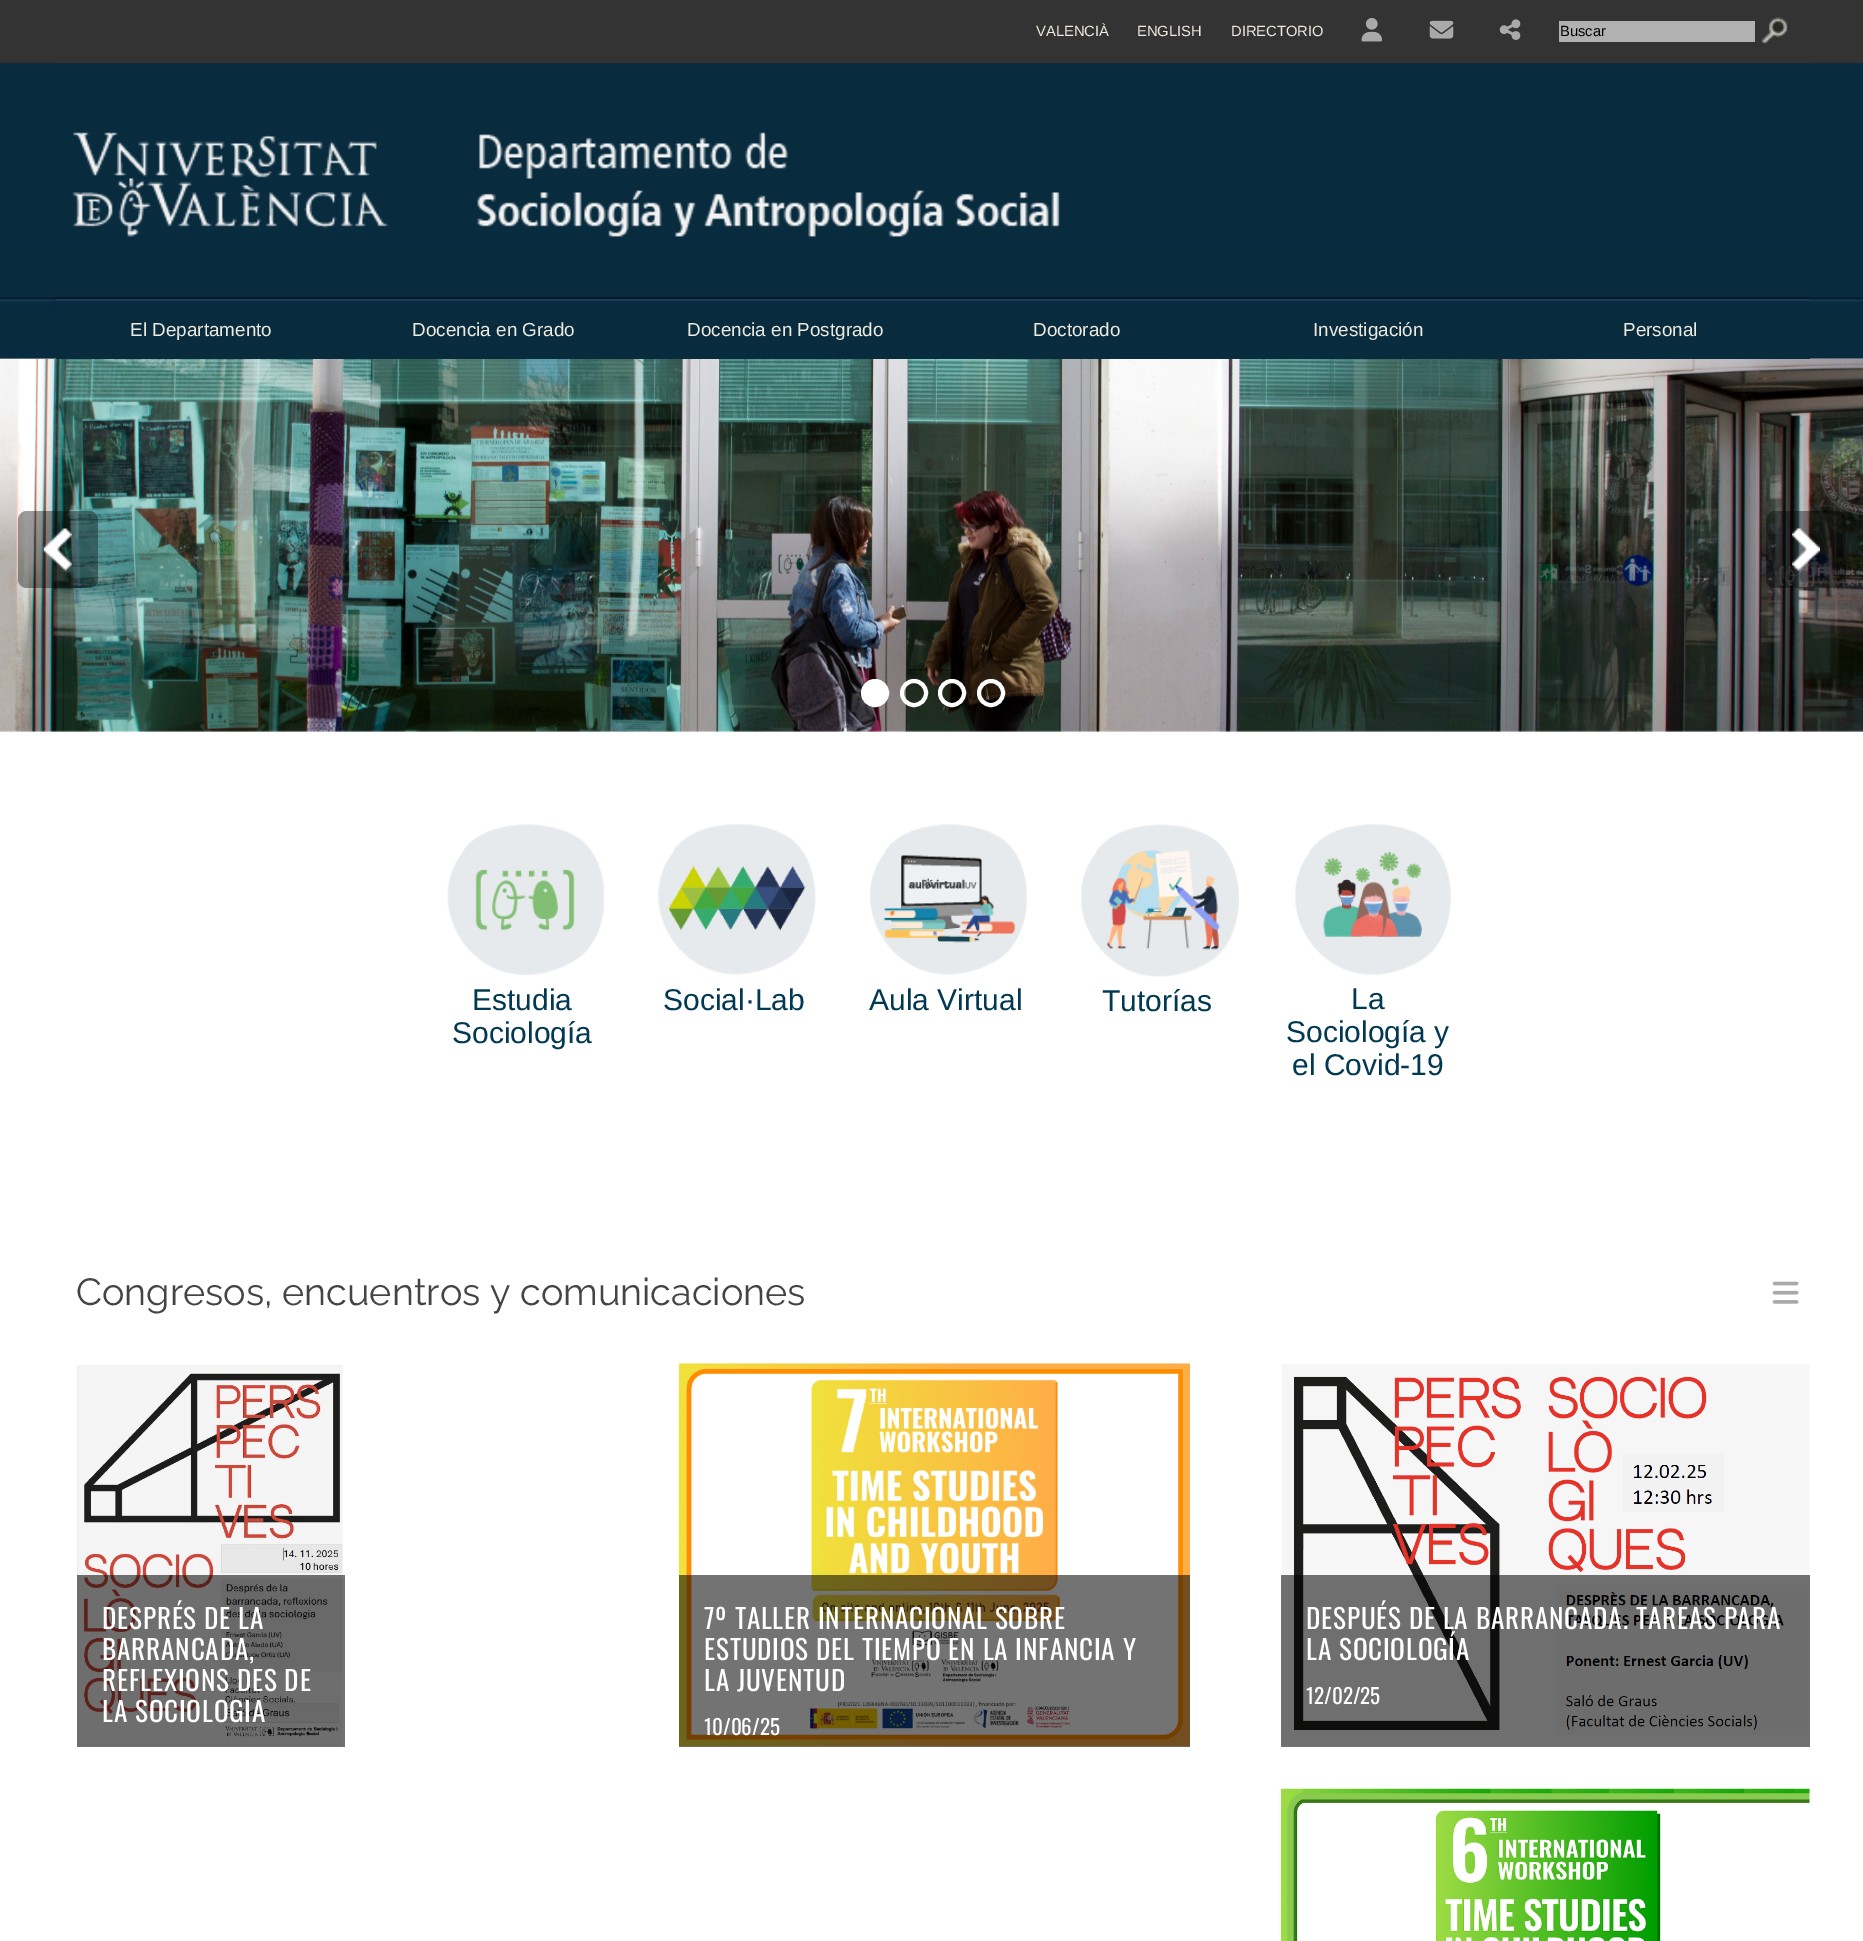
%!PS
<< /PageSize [1863 1941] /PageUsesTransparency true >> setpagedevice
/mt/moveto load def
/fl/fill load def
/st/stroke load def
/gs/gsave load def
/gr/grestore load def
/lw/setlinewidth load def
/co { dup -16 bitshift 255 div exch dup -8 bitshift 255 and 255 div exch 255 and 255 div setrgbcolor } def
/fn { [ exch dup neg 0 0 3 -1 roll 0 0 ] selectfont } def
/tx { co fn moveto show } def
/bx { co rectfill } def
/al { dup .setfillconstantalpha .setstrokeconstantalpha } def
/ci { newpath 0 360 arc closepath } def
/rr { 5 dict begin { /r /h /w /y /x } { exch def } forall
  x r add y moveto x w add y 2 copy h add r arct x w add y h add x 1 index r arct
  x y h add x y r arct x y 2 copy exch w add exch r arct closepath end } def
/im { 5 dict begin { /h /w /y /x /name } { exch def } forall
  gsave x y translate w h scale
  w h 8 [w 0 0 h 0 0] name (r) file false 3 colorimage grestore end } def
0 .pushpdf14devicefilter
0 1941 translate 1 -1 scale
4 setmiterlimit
0 0 1863 1941 16#FFFFFF bx
(media/1.raw) 0 0 1863 359 im
56 62 1754 1 16#333333 bx
(media/2.raw) 1361 17 21 25 im
(media/3.raw) 1429 20 25 19 im
(media/4.raw) 1499 19 22 21 im
1559 21 196 21 16#B1B1B1 bx
(media/5.raw) 1761 17 27 27 im
56 63 1754 1 16#082B3E bx
56 297 1754 2 16#061A25 bx
(media/6.raw) 72 132 988 105 im
56 301 1754 58 16#082B3E bx
56 299 1754 2 16#1A3B5A bx
(media/7.raw) 0 359 1863 373 im
0.39 al
16#000000 co
18 511 80 77 9 rr fl
1 al
(media/8.raw) 43 528 29 43 im
0.39 al
1766 511 80 77 9 rr fl
1 al
(media/9.raw) 1792 528 28 43 im
16#FFFFFF co
875 693 12 ci gs fl gr
4 lw
st
914 693 12 ci st
952 693 12 ci st
991 693 12 ci st
(media/10.raw) 447 824 157 151 im
(media/11.raw) 658 824 158 151 im
(media/12.raw) 870 824 157 151 im
(media/13.raw) 1081 824 158 153 im
(media/14.raw) 1295 824 156 151 im
(media/15.raw) 1772 1281 27 23 im
(media/16.raw) 77 1365 266 381 im
0.55 al
77 1575 268 172 16#000000 bx
1 al
(media/17.raw) 679 1363 511 384 im
0.55 al
679 1575 511 172 16#000000 bx
1 al
(media/18.raw) 1282 1364 528 382 im
0.55 al
1281 1575 529 172 16#000000 bx
1 al
(media/19.raw) 1281 1788 529 153 im
(VALENCIÀ) 1036 36 /LiberationSans-Regular 14.75 16#EDEADF tx
(ENGLISH) 1137 36 /LiberationSans-Regular 14.75 16#EDEADF tx
(DIRECTORIO) 1231 36 /LiberationSans-Regular 14.75 16#EDEADF tx
(Buscar) 1560 36 /LiberationSans-Regular 14.75 16#000000 tx
(El Departamento) 130 336 /LiberationSans-Regular 18.9 16#EDEADF tx
(Docencia en Grado) 412 336 /LiberationSans-Regular 18.9 16#EDEADF tx
(Docencia en Postgrado) 687 336 /LiberationSans-Regular 18.9 16#EDEADF tx
(Doctorado) 1033 336 /LiberationSans-Regular 18.9 16#EDEADF tx
(Investigación) 1313 336 /LiberationSans-Regular 18.9 16#EDEADF tx
(Personal) 1623 336 /LiberationSans-Regular 18.9 16#EDEADF tx
(Estudia) 472 1010 /LiberationSans-Regular 30 16#013952 tx
(Sociología) 452 1043 /LiberationSans-Regular 30 16#013952 tx
(Social·Lab) 663 1010 /LiberationSans-Regular 30 16#013952 tx
(Aula Virtual) 869 1010 /LiberationSans-Regular 30 16#013952 tx
(Tutorías) 1102 1011 /LiberationSans-Regular 30 16#013952 tx
(La) 1351 1009 /LiberationSans-Regular 30 16#013952 tx
(Sociología y) 1286 1042 /LiberationSans-Regular 30 16#013952 tx
(el Covid-19) 1292 1075 /LiberationSans-Regular 30 16#013952 tx
(Congresos, encuentros y comunicaciones) 76 1305 /Raleway-Regular 37.75 16#444444 tx
/Oswald-Regular 27.25 fn
16#FFFFFF co
102 1629 mt .8 0 (DESPRÉS DE LA) ashow
102 1660 mt .8 0 (BARRANCADA,) ashow
102 1691 mt .8 0 (REFLEXIONS DES DE) ashow
102 1722 mt .8 0 (LA SOCIOLOGIA) ashow
704 1629 mt .8 0 (7º TALLER INTERNACIONAL SOBRE) ashow
704 1660 mt .8 0 (ESTUDIOS DEL TIEMPO EN LA INFANCIA Y) ashow
704 1691 mt .8 0 (LA JUVENTUD) ashow
(10/06/25) 704 1735 /Oswald-Regular 21 16#FFFFFF tx
/Oswald-Regular 27.25 fn
1306 1629 mt .8 0 (DESPUÉS DE LA BARRANCADA. TAREAS PARA) ashow
1306 1660 mt .8 0 (LA SOCIOLOGÍA) ashow
(12/02/25) 1306 1704 /Oswald-Regular 21 16#FFFFFF tx
.poppdf14devicefilter showpage
